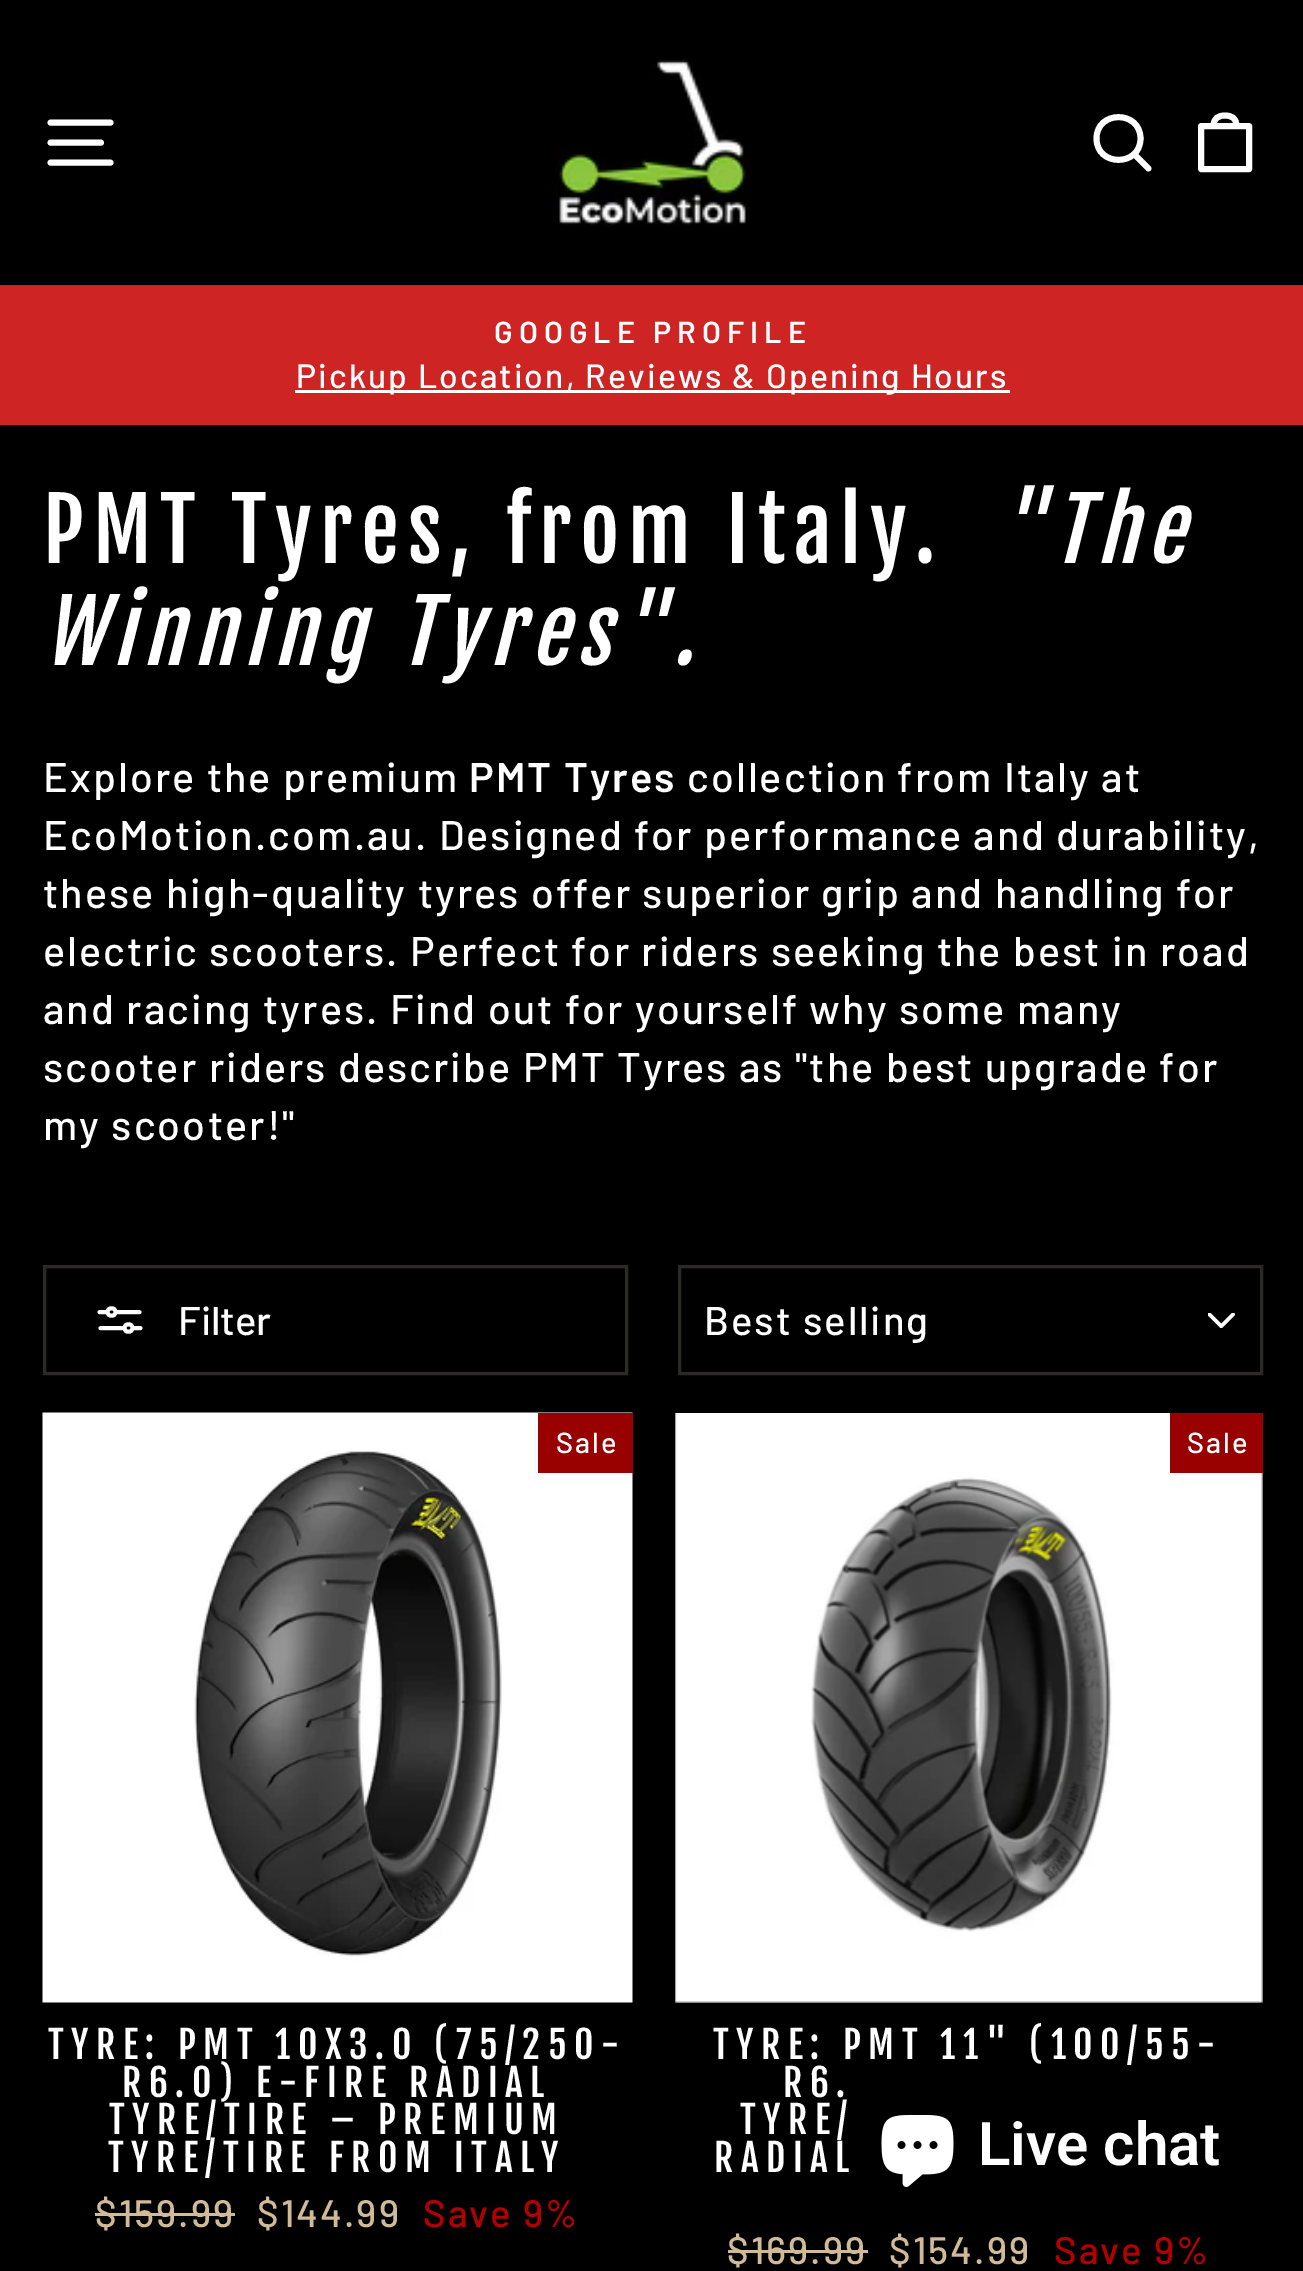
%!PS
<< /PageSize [1303 2271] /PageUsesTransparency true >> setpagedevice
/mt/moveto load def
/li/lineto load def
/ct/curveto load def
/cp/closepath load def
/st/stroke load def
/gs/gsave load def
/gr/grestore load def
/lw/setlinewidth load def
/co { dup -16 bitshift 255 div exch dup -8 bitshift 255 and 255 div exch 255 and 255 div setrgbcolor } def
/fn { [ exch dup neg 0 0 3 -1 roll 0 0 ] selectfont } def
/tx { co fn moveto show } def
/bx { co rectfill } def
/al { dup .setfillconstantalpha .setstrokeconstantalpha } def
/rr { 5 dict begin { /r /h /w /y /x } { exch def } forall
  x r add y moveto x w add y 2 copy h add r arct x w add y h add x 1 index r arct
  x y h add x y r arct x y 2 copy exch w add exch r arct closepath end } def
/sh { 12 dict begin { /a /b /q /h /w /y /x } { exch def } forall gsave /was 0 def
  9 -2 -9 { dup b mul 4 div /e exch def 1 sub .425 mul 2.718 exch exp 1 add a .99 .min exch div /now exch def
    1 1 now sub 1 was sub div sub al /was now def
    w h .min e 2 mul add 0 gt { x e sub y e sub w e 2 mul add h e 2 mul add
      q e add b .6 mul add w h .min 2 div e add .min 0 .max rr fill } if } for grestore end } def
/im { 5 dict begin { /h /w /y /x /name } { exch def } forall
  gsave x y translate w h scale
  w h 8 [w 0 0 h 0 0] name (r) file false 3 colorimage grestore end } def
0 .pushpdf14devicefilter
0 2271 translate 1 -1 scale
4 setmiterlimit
0 0 1303 2271 16#000000 bx
0 285 1303 140 16#CF2424 bx
gs
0 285 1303 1 rectclip
16#000000 co
0 0 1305 285 0 1 .2 sh
gr
16#FFFFFF co
5.9 lw
1 setlinecap
1 setlinejoin
50.5 122.5 mt 110.5 122.5 li 50.5 142.5 mt 101 142.5 li 50.5 162.5 mt 110.5 162.5 li st
(media/1.raw) 553 58 200 169 im
1140.5 138.5 mt 1140.5 167 1096.5 167 1096.5 138.5 ct 1096.5 110 1140.5 110 1140.5 138.5 ct cp 1148.5 168.5 mt 1134 154 li st
1201 126 mt 1249 126 li 1249 169 li 1201 169 li cp 1213.5 126 mt 1213.5 118 1218.5 115.5 1225 115.5 ct 1231.5 115.5 1236.5 118 1236.5 126 ct st
295 390 715 3 16#FFFFFF bx
16#2B2A27 co
3 lw
0 setlinecap
0 setlinejoin
44.5 1266.5 582 107 rectstroke
16#FFFFFF co
3.9 lw
1 setlinecap
1 setlinejoin
132.5 1328 mt 140.5 1328 li 132.5 1328 mt 132.5 1333 124.5 1333 124.5 1328 ct 124.5 1323 132.5 1323 132.5 1328 ct cp 100.5 1328 mt 124.5 1328 li 107.5 1312 mt 99.5 1312 li 107.5 1312 mt 107.5 1307 115.5 1307 115.5 1312 ct 115.5 1317 107.5 1317 107.5 1312 ct cp 139.5 1312 mt 115.5 1312 li st
(media/2.raw) 1208 1313 27 15 im
16#2B2A27 co
3 lw
0 setlinecap
0 setlinejoin
679.5 1266.5 582 107 rectstroke
(media/3.raw) 42 1412 591 591 im
538 1413 95 60 16#990000 bx
95 2213 140 3 16#D1BA98 bx
(media/4.raw) 675 1413 588 590 im
1170 1413 93 60 16#990000 bx
728 2250 140 3 16#D1BA98 bx
16#000000 co
850 2070 400 150 40 6 .15 sh
(media/5.raw) 881 2115 73 72 im
/Barlow-SemiBold 30.4 fn
16#FFFFFF co
494 343 mt 6.1 0 (GOOGLE PROFILE) ashow
/Barlow-Medium 33.75 fn
296 388 mt 2.07 0 (Pickup Location, Reviews & Opening Hours) ashow
/FjallaOne-Regular 85 fn
43 563 mt 8.5 0 (PMT Tyres, from Italy.) ashow
/FjallaOne-Italic 85 fn
997 563 mt 8.5 0 ("The) ashow
43 665 mt 8.5 0 (Winning Tyres".) ashow
/Barlow-Medium 41.4 fn
43 792 mt 2.07 0 (Explore the premium) ashow
/Barlow-SemiBold 41.4 fn
469 792 mt 2.07 0 (PMT Tyres) ashow
/Barlow-Medium 41.4 fn
687 792 mt 2.07 0 (collection from Italy at) ashow
43 850 mt 2.07 0 (EcoMotion.com.au. Designed for performance and durability,) ashow
43 908 mt 2.07 0 (these high-quality tyres offer superior grip and handling for) ashow
43 966 mt 2.07 0 (electric scooters. Perfect for riders seeking the best in road) ashow
43 1024 mt 2.07 0 (and racing tyres. Find out for yourself why some many) ashow
43 1082 mt 2.07 0 (scooter riders describe PMT Tyres as "the best upgrade for) ashow
43 1140 mt 2.07 0 (my scooter!") ashow
(Filter) 178 1335 /Barlow-Medium 40 16#FFFFFF tx
704 1335 mt 2 0 (Best selling) ashow
/Barlow-Medium 29 fn
556 1453 mt 2.07 0 (Sale) ashow
/FjallaOne-Regular 37.5 fn
48 2059 mt 7.5 0 (TYRE: PMT 10X3.0 \(75/250-) ashow
122 2097 mt 7.5 0 (R6.0\) E-FIRE RADIAL) ashow
109 2134 mt 7.5 0 (TYRE/TIRE – PREMIUM) ashow
108 2172 mt 7.5 0 (TYRE/TIRE FROM ITALY) ashow
/Barlow-Medium 38.25 fn
16#D1BA98 co
95 2227 mt 2.07 0 ($159.99) ashow
257 2227 mt 2.07 0 ($144.99) ashow
16#B30000 co
423 2227 mt 2.07 0 (Save 9%) ashow
/Barlow-Medium 29 fn
16#FFFFFF co
1187 1453 mt 2.07 0 (Sale) ashow
/FjallaOne-Regular 37.5 fn
713 2059 mt 7.5 0 (TYRE: PMT 11" \(100/55-) ashow
783 2097 mt 7.5 0 (R6.) ashow
740 2134 mt 7.5 0 (TYRE/) ashow
714 2172 mt 7.5 0 (RADIAL) ashow
/Barlow-Medium 38.25 fn
16#D1BA98 co
727 2264 mt 2.07 0 ($169.99) ashow
889 2264 mt 2.07 0 ($154.99) ashow
16#B30000 co
1054 2264 mt 2.07 0 (Save 9%) ashow
(Live chat) 978 2165 /Roboto-SemiBold 60 16#FFFFFF tx
.poppdf14devicefilter showpage
